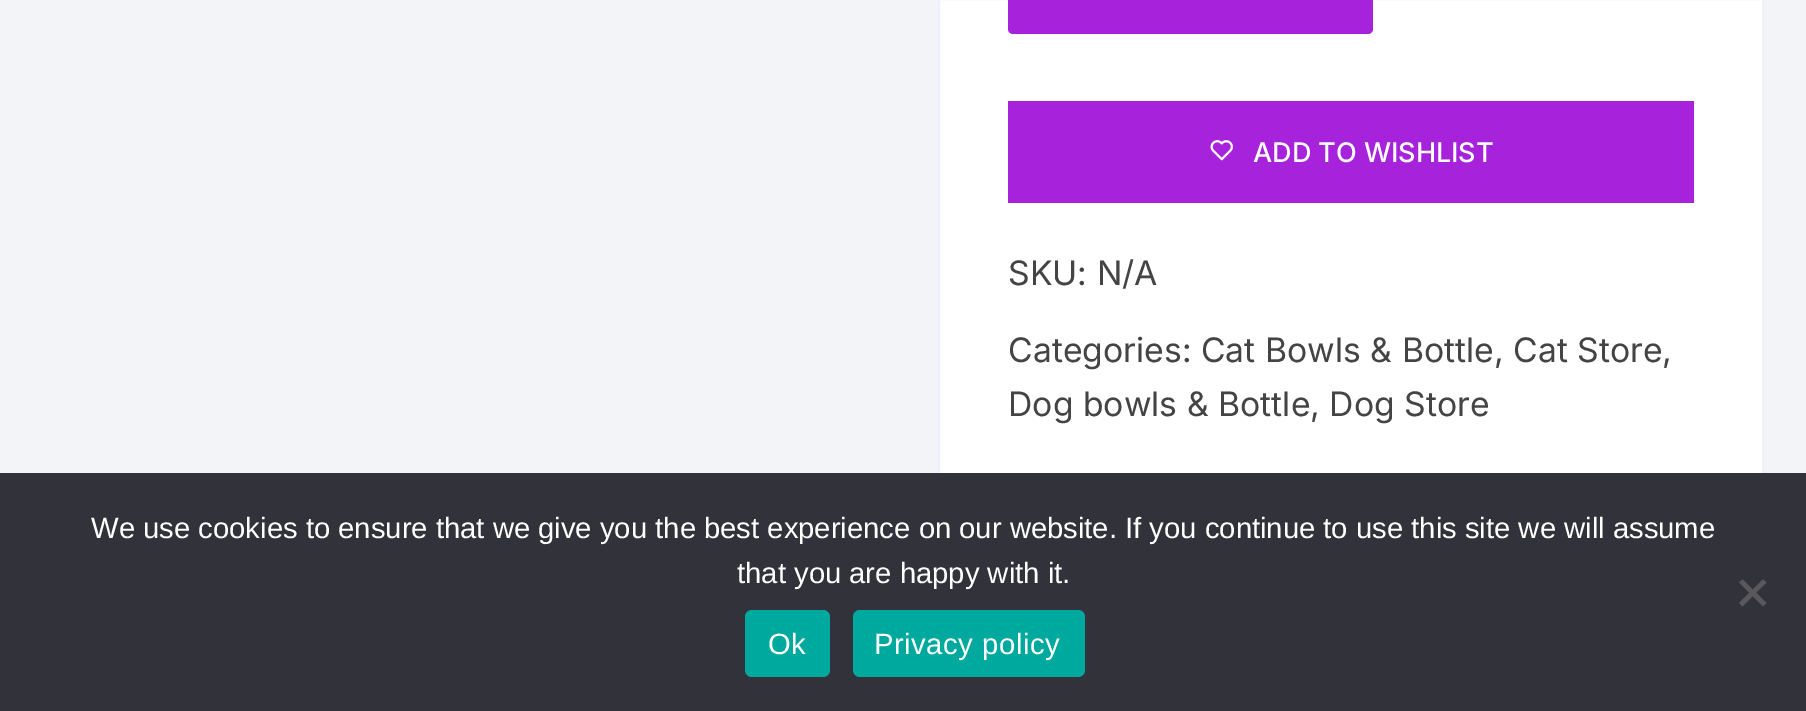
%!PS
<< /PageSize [1806 711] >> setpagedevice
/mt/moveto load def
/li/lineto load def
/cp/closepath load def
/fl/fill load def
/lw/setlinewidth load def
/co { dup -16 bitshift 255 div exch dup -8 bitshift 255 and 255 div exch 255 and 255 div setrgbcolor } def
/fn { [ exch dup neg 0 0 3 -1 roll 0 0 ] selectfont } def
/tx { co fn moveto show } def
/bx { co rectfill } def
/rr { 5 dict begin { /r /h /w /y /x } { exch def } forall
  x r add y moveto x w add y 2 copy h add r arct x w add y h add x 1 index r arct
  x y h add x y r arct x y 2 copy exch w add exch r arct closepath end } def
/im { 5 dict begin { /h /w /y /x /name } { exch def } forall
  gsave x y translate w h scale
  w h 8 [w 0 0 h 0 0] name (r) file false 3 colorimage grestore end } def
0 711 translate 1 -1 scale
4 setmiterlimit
0 0 1806 711 16#F3F4F8 bx
940 0 822 473 16#FFFFFF bx
16#EEF1FD co
2 lw
939 -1 824 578 rectstroke
16#A723DB co
1008 -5 365 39 5 rr fl
1008 101 686 102 16#A723DB bx
(media/1.raw) 1210 140 23 21 im
0 473 1806 238 16#32323A bx
16#59595D co
1763 579.5 mt 1766.5 582.5 li 1742.5 606.5 li 1739 603 li cp fl
1739 582.5 mt 1742.5 579.5 li 1766.5 603 li 1763 606.5 li cp fl
16#00A99D co
745 610 85 67 7 rr fl
853 610 232 67 7 rr fl
(ADD TO WISHLIST) 1253 162 /Inter-Medium 27 16#FFFFFF tx
(SKU: N/A) 1008 285 /Inter-Regular 33.75 16#444444 tx
(Categories: Cat Bowls & Bottle, Cat Store,) 1008 362 /Inter-Regular 33.75 16#444444 tx
(Dog bowls & Bottle, Dog Store) 1008 416 /Inter-Regular 33.75 16#444444 tx
(We use cookies to ensure that we give you the best experience on our website. If you continue to use this site we will assume) 91 538 /LiberationSans-Regular 29.25 16#FFFFFF tx
(that you are happy with it.) 737 583 /LiberationSans-Regular 29.25 16#FFFFFF tx
768 654 mt .5 0 (Ok) ashow
874 654 mt .5 0 (Privacy policy) ashow
showpage
